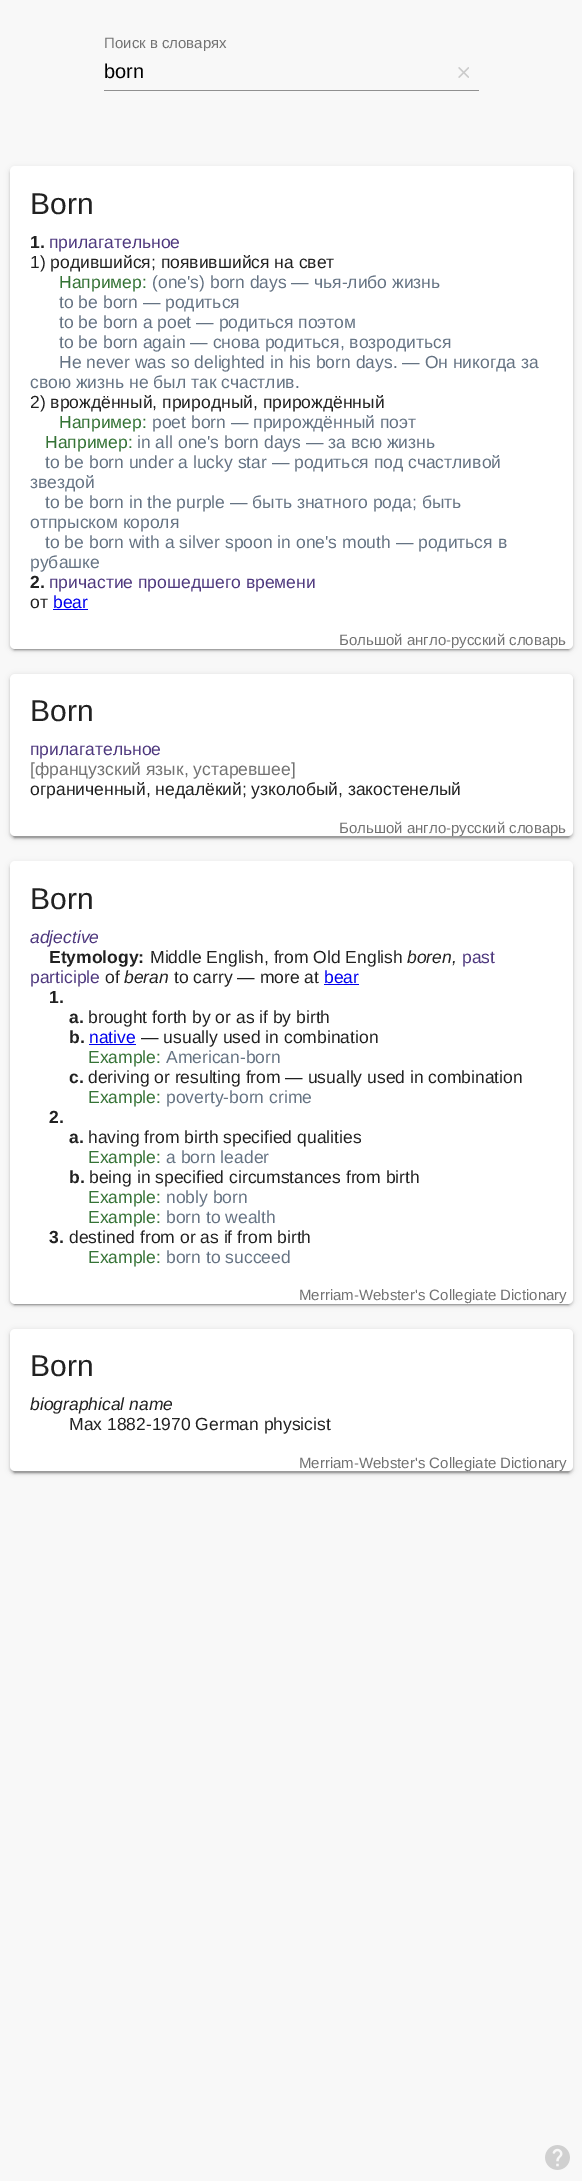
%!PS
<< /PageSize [582 2181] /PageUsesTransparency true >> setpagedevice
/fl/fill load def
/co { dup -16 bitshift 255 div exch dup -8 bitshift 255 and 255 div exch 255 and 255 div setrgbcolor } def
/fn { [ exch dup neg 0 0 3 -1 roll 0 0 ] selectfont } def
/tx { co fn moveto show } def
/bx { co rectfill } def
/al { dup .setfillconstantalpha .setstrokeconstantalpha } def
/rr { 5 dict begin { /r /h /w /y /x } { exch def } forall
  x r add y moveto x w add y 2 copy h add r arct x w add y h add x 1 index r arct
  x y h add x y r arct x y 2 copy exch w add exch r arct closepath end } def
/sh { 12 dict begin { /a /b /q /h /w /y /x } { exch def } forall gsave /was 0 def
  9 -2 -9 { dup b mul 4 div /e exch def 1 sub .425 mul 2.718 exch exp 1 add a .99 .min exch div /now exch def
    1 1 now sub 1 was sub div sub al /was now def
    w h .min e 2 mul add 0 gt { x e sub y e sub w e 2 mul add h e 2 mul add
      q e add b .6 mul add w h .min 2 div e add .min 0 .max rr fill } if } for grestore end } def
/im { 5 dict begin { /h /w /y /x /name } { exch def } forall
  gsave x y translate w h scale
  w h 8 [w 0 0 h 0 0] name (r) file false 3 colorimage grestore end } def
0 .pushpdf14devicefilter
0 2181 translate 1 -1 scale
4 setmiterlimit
0 0 582 2181 16#F8F8F8 bx
(media/1.raw) 458 67 11 11 im
104 90 375 1 16#909090 bx
16#000000 co
10 168 563 482 5 3 .12 sh
10 169 563 482 5 1 .14 sh
13 173 557 477 2.5 .5 .2 sh
16#FFFFFF co
10 166 563 483 5 rr fl
53 609 35 1 16#0000EE bx
16#000000 co
10 675 563 163 5 3 .12 sh
10 676 563 163 5 1 .14 sh
13 680 557 158 2.5 .5 .2 sh
16#FFFFFF co
10 674 563 162 5 rr fl
16#000000 co
10 863 563 442 5 3 .12 sh
10 864 563 442 5 1 .14 sh
13 868 557 437 2.5 .5 .2 sh
16#FFFFFF co
10 861 563 443 5 rr fl
324 984 35 1 16#0000EE bx
89 1044 47 1 16#0000EE bx
16#000000 co
10 1330 563 143 5 3 .12 sh
10 1331 563 143 5 1 .14 sh
13 1335 557 138 2.5 .5 .2 sh
16#FFFFFF co
10 1329 563 142 5 rr fl
(media/2.raw) 545 2145 25 25 im
(Поиск в словарях) 104 48 /LiberationSans-Regular 15 16#727272 tx
(born) 104 78 /LiberationSans-Regular 20 16#000000 tx
(Born) 30 214 /LiberationSans-Regular 30 16#212121 tx
(1.) 30 248 /LiberationSans-Bold 17.5 16#212121 tx
(прилагательное) 49 248 /LiberationSans-Regular 17.5 16#4E387E tx
(1\) родившийся; появившийся на свет) 30 268 /LiberationSans-Regular 17.5 16#212121 tx
(Например:) 59 288 /LiberationSans-Regular 17.5 16#347235 tx
(\(one's\) born days — чья-либо жизнь) 152 288 /LiberationSans-Regular 17.5 16#657383 tx
(to be born — родиться) 59 308 /LiberationSans-Regular 17.5 16#657383 tx
(to be born a poet — родиться поэтом) 59 328 /LiberationSans-Regular 17.5 16#657383 tx
(to be born again — снова родиться, возродиться) 59 348 /LiberationSans-Regular 17.5 16#657383 tx
(He never was so delighted in his born days. — Он никогда за) 59 368 /LiberationSans-Regular 17.5 16#657383 tx
(свою жизнь не был так счастлив.) 30 388 /LiberationSans-Regular 17.5 16#657383 tx
(2\) врождённый, природный, прирождённый) 30 408 /LiberationSans-Regular 17.5 16#212121 tx
(Например:) 59 428 /LiberationSans-Regular 17.5 16#347235 tx
(poet born — прирождённый поэт) 152 428 /LiberationSans-Regular 17.5 16#657383 tx
(Например:) 45 448 /LiberationSans-Regular 17.5 16#347235 tx
(in all one's born days — за всю жизнь) 137 448 /LiberationSans-Regular 17.5 16#657383 tx
(to be born under a lucky star — родиться под счастливой) 45 468 /LiberationSans-Regular 17.5 16#657383 tx
(звездой) 30 488 /LiberationSans-Regular 17.5 16#657383 tx
(to be born in the purple — быть знатного рода; быть) 45 508 /LiberationSans-Regular 17.5 16#657383 tx
(отпрыском короля) 30 528 /LiberationSans-Regular 17.5 16#657383 tx
(to be born with a silver spoon in one's mouth — родиться в) 45 548 /LiberationSans-Regular 17.5 16#657383 tx
(рубашке) 30 568 /LiberationSans-Regular 17.5 16#657383 tx
(2.) 30 588 /LiberationSans-Bold 17.5 16#212121 tx
(причастие прошедшего времени) 49 588 /LiberationSans-Regular 17.5 16#4E387E tx
(от) 30 608 /LiberationSans-Regular 17.5 16#212121 tx
(bear) 53 608 /LiberationSans-Regular 17.5 16#0000EE tx
(Большой англо-русский словарь) 339 645 /LiberationSans-Regular 15 16#727272 tx
(Born) 30 721 /LiberationSans-Regular 30 16#212121 tx
(прилагательное) 30 755 /LiberationSans-Regular 17.5 16#4E387E tx
([французский язык, устаревшее]) 30 775 /LiberationSans-Regular 17.5 16#727272 tx
(ограниченный, недалёкий; узколобый, закостенелый) 30 795 /LiberationSans-Regular 17.5 16#212121 tx
(Большой англо-русский словарь) 339 833 /LiberationSans-Regular 15 16#727272 tx
(Born) 30 909 /LiberationSans-Regular 30 16#212121 tx
(adjective) 30 943 /LiberationSans-Italic 17.5 16#4E387E tx
(Etymology:) 49 963 /LiberationSans-Bold 17.5 16#212121 tx
(Middle English, from Old English) 150 963 /LiberationSans-Regular 17.5 16#212121 tx
(boren,) 407 963 /LiberationSans-Italic 17.5 16#212121 tx
(past) 462 963 /LiberationSans-Regular 17.5 16#4E387E tx
(participle) 30 983 /LiberationSans-Regular 17.5 16#4E387E tx
(of) 105 983 /LiberationSans-Regular 17.5 16#212121 tx
(beran) 124 983 /LiberationSans-Italic 17.5 16#212121 tx
(to carry — more at) 174 983 /LiberationSans-Regular 17.5 16#212121 tx
(bear) 324 983 /LiberationSans-Regular 17.5 16#0000EE tx
(1.) 49 1003 /LiberationSans-Bold 17.5 16#212121 tx
(a.) 69 1023 /LiberationSans-Bold 17.5 16#212121 tx
(brought forth by or as if by birth) 88 1023 /LiberationSans-Regular 17.5 16#212121 tx
(b.) 69 1043 /LiberationSans-Bold 17.5 16#212121 tx
(native) 89 1043 /LiberationSans-Regular 17.5 16#0000EE tx
(— usually used in combination) 141 1043 /LiberationSans-Regular 17.5 16#212121 tx
(Example:) 88 1063 /LiberationSans-Regular 17.5 16#347235 tx
(American-born) 166 1063 /LiberationSans-Regular 17.5 16#657383 tx
(c.) 69 1083 /LiberationSans-Bold 17.5 16#212121 tx
(deriving or resulting from — usually used in combination) 88 1083 /LiberationSans-Regular 17.5 16#212121 tx
(Example:) 88 1103 /LiberationSans-Regular 17.5 16#347235 tx
(poverty-born crime) 166 1103 /LiberationSans-Regular 17.5 16#657383 tx
(2.) 49 1123 /LiberationSans-Bold 17.5 16#212121 tx
(a.) 69 1143 /LiberationSans-Bold 17.5 16#212121 tx
(having from birth specified qualities) 88 1143 /LiberationSans-Regular 17.5 16#212121 tx
(Example:) 88 1163 /LiberationSans-Regular 17.5 16#347235 tx
(a born leader) 166 1163 /LiberationSans-Regular 17.5 16#657383 tx
(b.) 69 1183 /LiberationSans-Bold 17.5 16#212121 tx
(being in specified circumstances from birth) 89 1183 /LiberationSans-Regular 17.5 16#212121 tx
(Example:) 88 1203 /LiberationSans-Regular 17.5 16#347235 tx
(nobly born) 166 1203 /LiberationSans-Regular 17.5 16#657383 tx
(Example:) 88 1223 /LiberationSans-Regular 17.5 16#347235 tx
(born to wealth) 166 1223 /LiberationSans-Regular 17.5 16#657383 tx
(3.) 49 1243 /LiberationSans-Bold 17.5 16#212121 tx
(destined from or as if from birth) 69 1243 /LiberationSans-Regular 17.5 16#212121 tx
(Example:) 88 1263 /LiberationSans-Regular 17.5 16#347235 tx
(born to succeed) 166 1263 /LiberationSans-Regular 17.5 16#657383 tx
(Merriam-Webster's Collegiate Dictionary) 299 1300 /LiberationSans-Regular 15 16#727272 tx
(Born) 30 1376 /LiberationSans-Regular 30 16#212121 tx
(biographical name) 30 1410 /LiberationSans-Italic 17.5 16#212121 tx
(Max 1882-1970 German physicist) 69 1430 /LiberationSans-Regular 17.5 16#212121 tx
(Merriam-Webster's Collegiate Dictionary) 299 1468 /LiberationSans-Regular 15 16#727272 tx
.poppdf14devicefilter showpage
